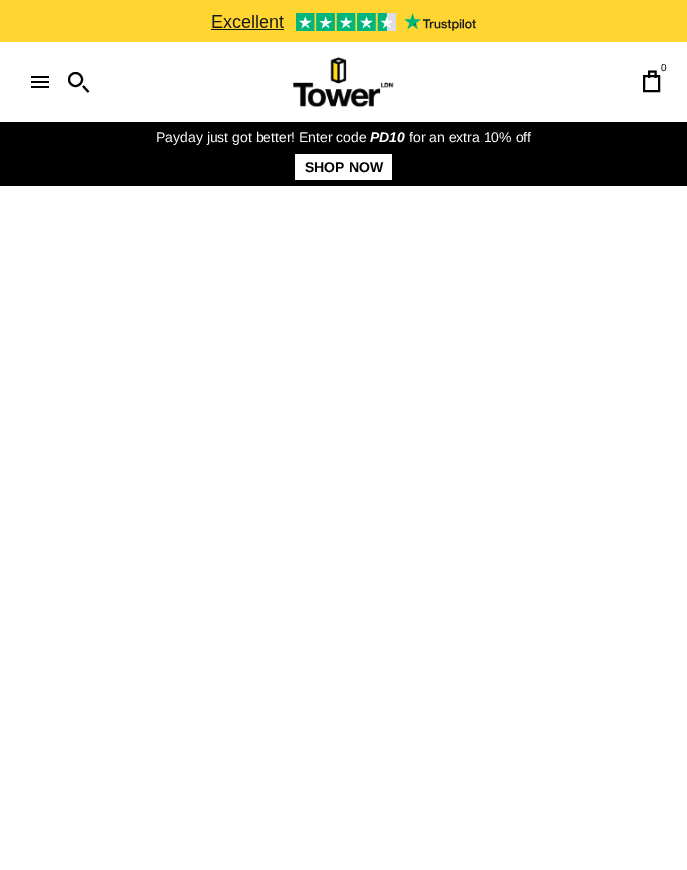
%!PS
<< /PageSize [687 870] >> setpagedevice
/mt/moveto load def
/li/lineto load def
/st/stroke load def
/lw/setlinewidth load def
/co { dup -16 bitshift 255 div exch dup -8 bitshift 255 and 255 div exch 255 and 255 div setrgbcolor } def
/fn { [ exch dup neg 0 0 3 -1 roll 0 0 ] selectfont } def
/tx { co fn moveto show } def
/bx { co rectfill } def
/ci { newpath 0 360 arc closepath } def
/im { 5 dict begin { /h /w /y /x /name } { exch def } forall
  gsave x y translate w h scale
  w h 8 [w 0 0 h 0 0] name (r) file false 3 colorimage grestore end } def
0 870 translate 1 -1 scale
4 setmiterlimit
0 0 687 870 16#FFFFFF bx
0 0 687 42 16#FFD531 bx
(media/1.raw) 210 13 266 18 im
(media/2.raw) 293 57 101 51 im
16#000000 co
2 lw
644 76 15 15 rectstroke
649 78 mt 649 71.5 li 655.5 71.5 li 655.5 78 li st
31 76 18 2 16#000000 bx
31 86 18 2 16#000000 bx
31 81 18 2 16#000000 bx
75.5 79.5 6.5 ci st
83 86 mt 88.5 92 li st
0 122 687 64 16#000000 bx
295 154 97 26 16#FFFFFF bx
(0) 661 71 /LiberationSans-Regular 10 16#010101 tx
(Payday just got better! Enter code) 156 142 /LiberationSans-Regular 14 16#FFFFFF tx
(PD10) 370 142 /LiberationSans-BoldItalic 14 16#FFFFFF tx
(for an extra 10% off) 409 142 /LiberationSans-Regular 14 16#FFFFFF tx
(SHOP NOW) 305 172 /LiberationSans-Bold 14 16#010101 tx
showpage
